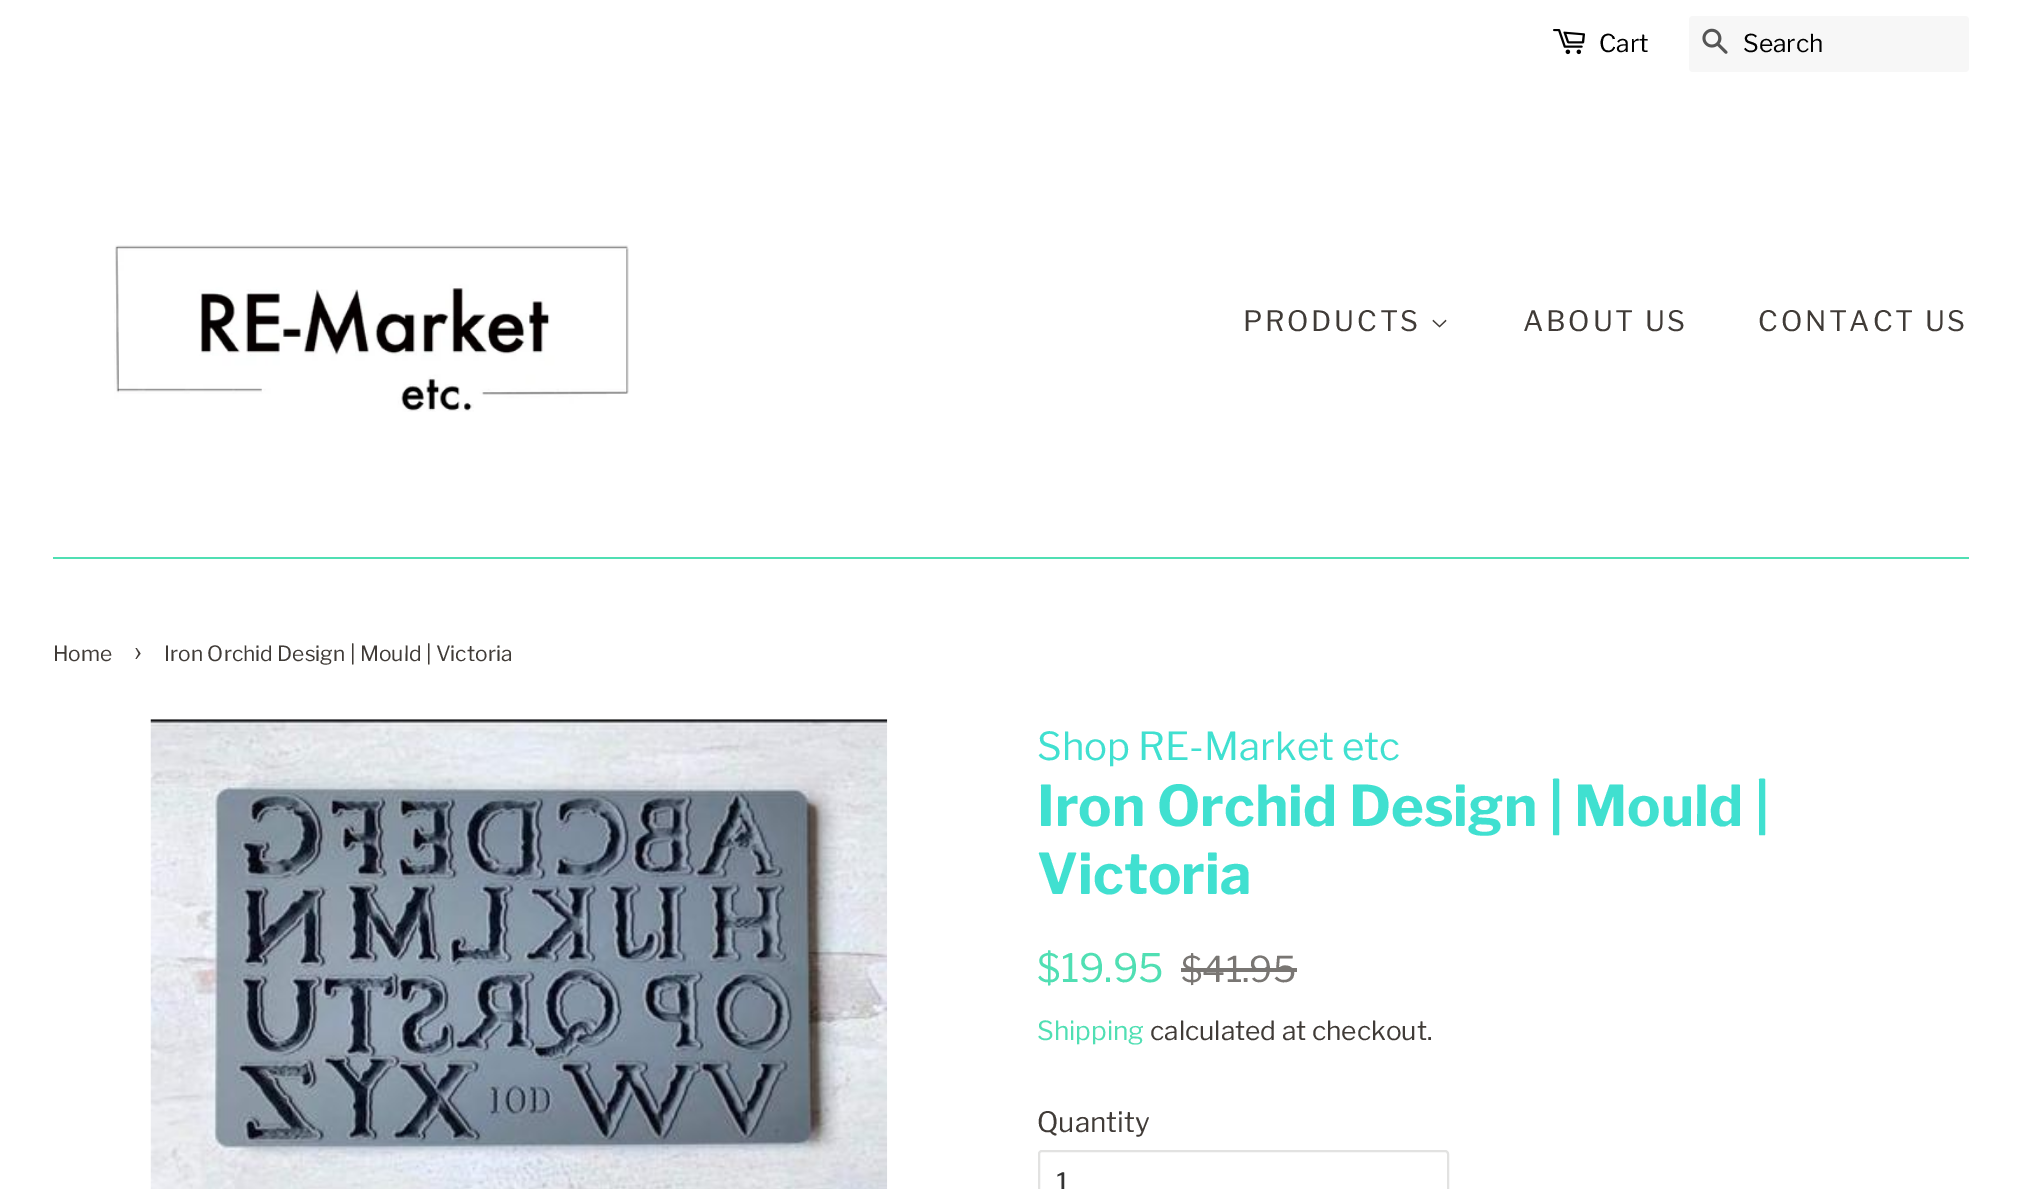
%!PS
<< /PageSize [2020 1189] >> setpagedevice
/mt/moveto load def
/fl/fill load def
/st/stroke load def
/lw/setlinewidth load def
/co { dup -16 bitshift 255 div exch dup -8 bitshift 255 and 255 div exch 255 and 255 div setrgbcolor } def
/fn { [ exch dup neg 0 0 3 -1 roll 0 0 ] selectfont } def
/tx { co fn moveto show } def
/bx { co rectfill } def
/rr { 5 dict begin { /r /h /w /y /x } { exch def } forall
  x r add y moveto x w add y 2 copy h add r arct x w add y h add x 1 index r arct
  x y h add x y r arct x y 2 copy exch w add exch r arct closepath end } def
/im { 5 dict begin { /h /w /y /x /name } { exch def } forall
  gsave x y translate w h scale
  w h 8 [w 0 0 h 0 0] name (r) file false 3 colorimage grestore end } def
0 1189 translate 1 -1 scale
4 setmiterlimit
0 0 2020 1189 16#FFFFFF bx
(media/1.raw) 1553 29 32 26 im
16#F7F7F7 co
1689 16 280 56 4 rr fl
(media/2.raw) 1702 28 26 26 im
53 557 1916 2 16#50DFB3 bx
(media/3.raw) 114 245 515 167 im
(media/4.raw) 1432 319 15 9 im
(media/5.raw) 150 719 738 470 im
1181 968 116 4 16#797673 bx
16#E2E2E1 co
2 lw
1039 1151 409 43 3 rr st
(Cart) 1599 52 /LibreFranklin-Regular 24.5 16#000000 tx
(Search) 1743 52 /LibreFranklin-Regular 24.5 16#000000 tx
/LibreFranklin-Regular 28 fn
16#403B37 co
1243 331 mt 2.75 0 (PRODUCTS) ashow
1523 331 mt 2.75 0 (ABOUT US) ashow
1758 331 mt 2.75 0 (CONTACT US) ashow
(Home) 53 661 /LibreFranklin-Regular 21 16#403B37 tx
(›) 134 661 /LibreFranklin-Regular 29 16#403B37 tx
(Iron Orchid Design | Mould | Victoria) 164 661 /LibreFranklin-Regular 21 16#403B37 tx
(Shop RE-Market etc) 1037 760 /LibreFranklin-Regular 38.5 16#40E0D0 tx
(Iron Orchid Design | Mould |) 1037 826 /LibreFranklin-Bold 56 16#40E0D0 tx
(Victoria) 1037 894 /LibreFranklin-Bold 56 16#40E0D0 tx
($19.95) 1037 982 /LibreFranklin-Regular 39 16#50DFB3 tx
($41.95) 1181 982 /LibreFranklin-Regular 35.5 16#797673 tx
(Shipping) 1037 1040 /LibreFranklin-Regular 26.25 16#50DFB3 tx
(calculated at checkout.) 1150 1040 /LibreFranklin-Regular 26.25 16#403B37 tx
(Quantity) 1037 1132 /LibreFranklin-Regular 28 16#403B37 tx
(1) 1056 1193 /LibreFranklin-Regular 28 16#333333 tx
showpage
